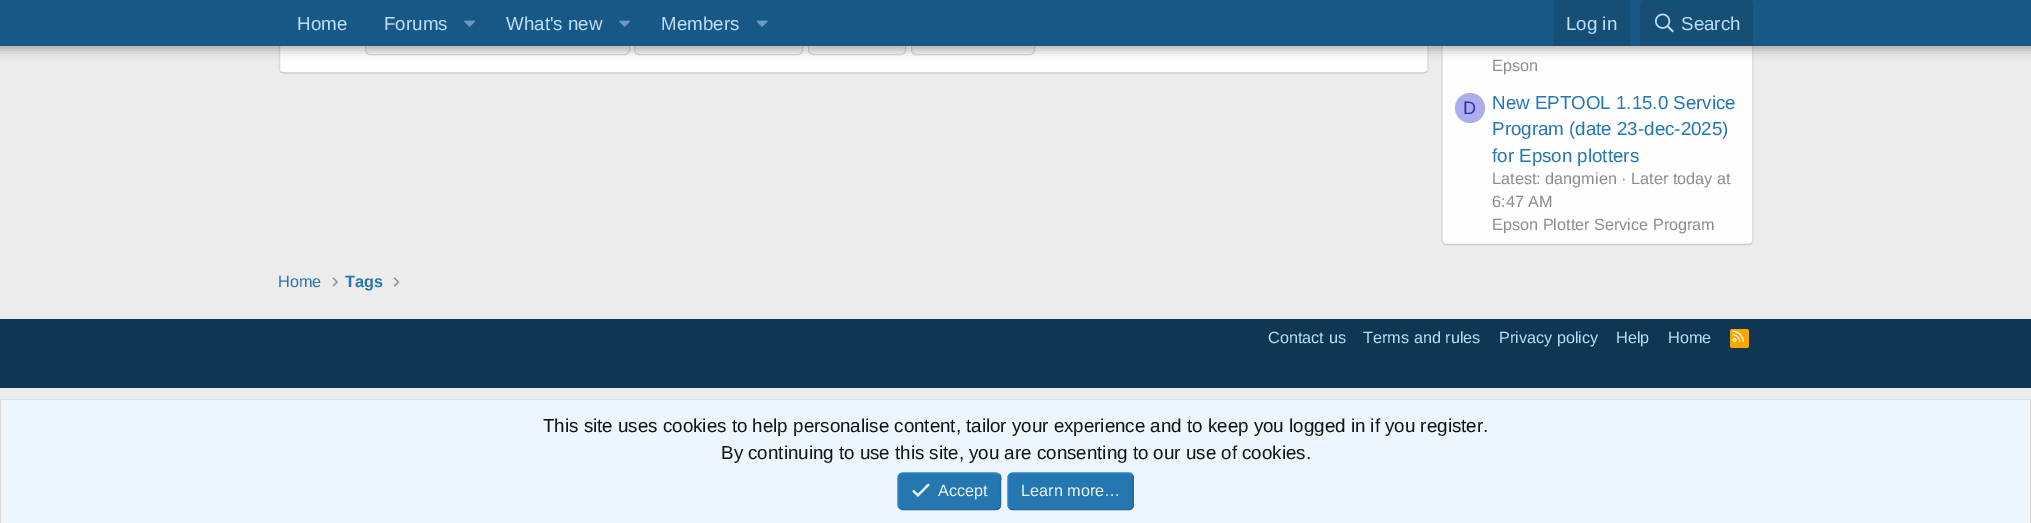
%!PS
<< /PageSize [2031 523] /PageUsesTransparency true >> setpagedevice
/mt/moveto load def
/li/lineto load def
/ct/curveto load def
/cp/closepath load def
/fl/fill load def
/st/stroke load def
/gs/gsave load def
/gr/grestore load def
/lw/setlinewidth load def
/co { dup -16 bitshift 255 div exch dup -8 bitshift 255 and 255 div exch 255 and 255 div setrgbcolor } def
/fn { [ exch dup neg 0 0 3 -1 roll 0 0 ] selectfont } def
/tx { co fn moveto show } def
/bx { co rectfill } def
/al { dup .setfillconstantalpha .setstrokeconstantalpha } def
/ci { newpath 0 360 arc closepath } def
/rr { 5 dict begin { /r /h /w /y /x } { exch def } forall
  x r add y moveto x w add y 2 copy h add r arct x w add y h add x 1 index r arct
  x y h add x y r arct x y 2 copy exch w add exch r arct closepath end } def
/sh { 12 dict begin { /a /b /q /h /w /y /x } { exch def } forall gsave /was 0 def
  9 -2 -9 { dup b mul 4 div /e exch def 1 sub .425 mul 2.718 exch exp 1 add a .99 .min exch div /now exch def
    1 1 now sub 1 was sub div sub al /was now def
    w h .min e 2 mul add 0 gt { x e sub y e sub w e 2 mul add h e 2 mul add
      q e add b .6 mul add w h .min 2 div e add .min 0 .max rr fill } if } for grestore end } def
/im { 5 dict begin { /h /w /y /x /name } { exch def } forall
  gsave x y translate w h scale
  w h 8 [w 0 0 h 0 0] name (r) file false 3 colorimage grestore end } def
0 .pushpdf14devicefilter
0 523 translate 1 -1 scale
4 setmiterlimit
0 0 2031 523 16#ECECEC bx
16#FEFEFE co
279 -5 1150 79 5 rr fl
16#D8D8D8 co
1.2 lw
1427 -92 mt 1427.5 -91 1428 -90 1428 -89 ct 1428 69 li 1428 70 1427.5 71 1427 72 ct st
16#CBCBCB co
1427 72 mt 1424 73 li 284 73 li 280.5 72 li st
16#D8D8D8 co
280.5 72 mt 280 71 279.5 70 279.5 69 ct 279.5 -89 li 279.5 -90 280 -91 280.5 -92 ct st
16#F5F5F5 co
365.5 30.5 264 24 4.5 rr gs fl gr
16#D8D8D8 co
1 lw
st
16#F5F5F5 co
634.5 30.5 168 24 4.5 rr gs fl gr
16#D8D8D8 co
st
16#F5F5F5 co
808.5 30.5 97 24 4.5 rr gs fl gr
16#D8D8D8 co
st
16#F5F5F5 co
911.5 30.5 123 24 4.5 rr gs fl gr
16#D8D8D8 co
st
16#FEFEFE co
1441 -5 313 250 5 rr fl
16#D8D8D8 co
1.2 lw
1752 -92 mt 1752.5 -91 1753 -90 1753 -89 ct 1753 240 li 1753 241 1752.5 242.5 1752 243 ct st
16#CBCBCB co
1752 243 mt 1751 244 1750 244.5 1749 244.5 ct 1446 244.5 li 1445 244.5 1444 244 1443 243 ct st
16#D8D8D8 co
1443 243 mt 1442.5 242.5 1442 241 1442 240 ct 1442 -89 li 1442 -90 1442.5 -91 1443 -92 ct st
16#000000 co
-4 -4 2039 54 0 5 .3 sh
0 0 2031 46 16#185886 bx
(media/1.raw) 464 20 11 7 im
(media/1.raw) 619 20 11 7 im
(media/2.raw) 756 20 12 7 im
1554 0 76 46 16#174E75 bx
1645 0 mt 1748 0 li 1751 0 1753 2 1753 5 ct 1753 46 li 1640 46 li 1640 5 li 1640 2 1642 0 1645 0 ct cp fl
(media/3.raw) 1655 13 19 20 im
16#ADADEB co
1470 108 15 ci fl
(media/4.raw) 332 277 6 10 im
(media/5.raw) 393 277 7 10 im
0 319 2031 69 16#0F3652 bx
16#FFA500 co
1730 329 19 19 2.5 rr fl
(media/6.raw) 1732 330 12 13 im
1 400 2029 123 16#EDF6FD bx
0 399 2031 1 16#DFDFDF bx
2030 399 1 124 16#D8D8D8 bx
0 399 1 124 16#D8D8D8 bx
16#2577B1 co
898 473 103 37 5 rr fl
16#21699C co
999.5 474.5 mt 1001.5 476.5 1000.5 479.5 1000.5 482 ct 1000.5 491 li 1000.5 512.5 1003.5 509.5 980.5 509.5 ct 902.5 509.5 li 899.5 508 li st
16#2985C6 co
899.5 508 mt 897.5 506 898 503 898 500.5 ct 898 491 li 898 470 895.5 473 918 473 ct 996 473 li 999.5 474.5 li st
(media/7.raw) 912 483 18 14 im
16#2577B1 co
1008 473 126 37 5 rr fl
16#21699C co
1132 474.5 mt 1132.5 475 1133 476.5 1133 477.5 ct 1133 505 li 1133 506 1132.5 507.5 1132 508 ct 1131 509 1130 509.5 1129 509.5 ct 1012.5 509.5 li 1011.5 509.5 1010 509 1009.5 508 ct st
16#2985C6 co
1009.5 508 mt 1008.5 507.5 1008 506 1008 505 ct 1008 477.5 li 1008 476.5 1008.5 475 1009.5 474.5 ct 1010 473.5 1011.5 473 1012.5 473 ct 1129 473 li 1130 473 1131 473.5 1132 474.5 ct st
(Home) 297 30 /LiberationSans-Regular 18.75 16#BCDEF5 tx
(Forums) 384 30 /LiberationSans-Regular 18.75 16#BCDEF5 tx
(What's new) 506 30 /LiberationSans-Regular 18.75 16#BCDEF5 tx
(Members) 661 30 /LiberationSans-Regular 18.75 16#BCDEF5 tx
(Log in) 1566 30 /LiberationSans-Regular 18.75 16#BCDEF5 tx
(Search) 1681 30 /LiberationSans-Regular 18.75 16#BCDEF5 tx
(Epson) 1492 71 /LiberationSans-Regular 16.25 16#8C8C8C tx
(D) 1463 114 /LiberationSans-Regular 18 16#2E2EB8 tx
(New EPTOOL 1.15.0 Service) 1492 109 /LiberationSans-Regular 18.75 16#2577B1 tx
(Program \(date 23-dec-2025\)) 1492 135 /LiberationSans-Regular 18.75 16#2577B1 tx
(for Epson plotters) 1492 162 /LiberationSans-Regular 18.75 16#2577B1 tx
(Latest: dangmien · Later today at) 1492 184 /LiberationSans-Regular 16.25 16#8C8C8C tx
(6:47 AM) 1492 207 /LiberationSans-Regular 16.25 16#8C8C8C tx
(Epson Plotter Service Program) 1492 230 /LiberationSans-Regular 16.25 16#8C8C8C tx
(Home) 278 287 /LiberationSans-Regular 16.25 16#2577B1 tx
(Tags) 345 287 /LiberationSans-Bold 16.25 16#2577B1 tx
(Contact us) 1268 343 /LiberationSans-Regular 16.25 16#BCDEF5 tx
(Terms and rules) 1363 343 /LiberationSans-Regular 16.25 16#BCDEF5 tx
(Privacy policy) 1499 343 /LiberationSans-Regular 16.25 16#BCDEF5 tx
(Help) 1616 343 /LiberationSans-Regular 16.25 16#BCDEF5 tx
(Home) 1668 343 /LiberationSans-Regular 16.25 16#BCDEF5 tx
(This site uses cookies to help personalise content, tailor your experience and to keep you logged in if you register.) 543 432 /LiberationSans-Regular 18.75 16#141414 tx
(By continuing to use this site, you are consenting to our use of cookies.) 721 459 /LiberationSans-Regular 18.75 16#141414 tx
(Accept) 938 496 /LiberationSans-Regular 16.25 16#EDF6FD tx
(Learn more…) 1021 496 /LiberationSans-Regular 16.25 16#EDF6FD tx
.poppdf14devicefilter showpage
